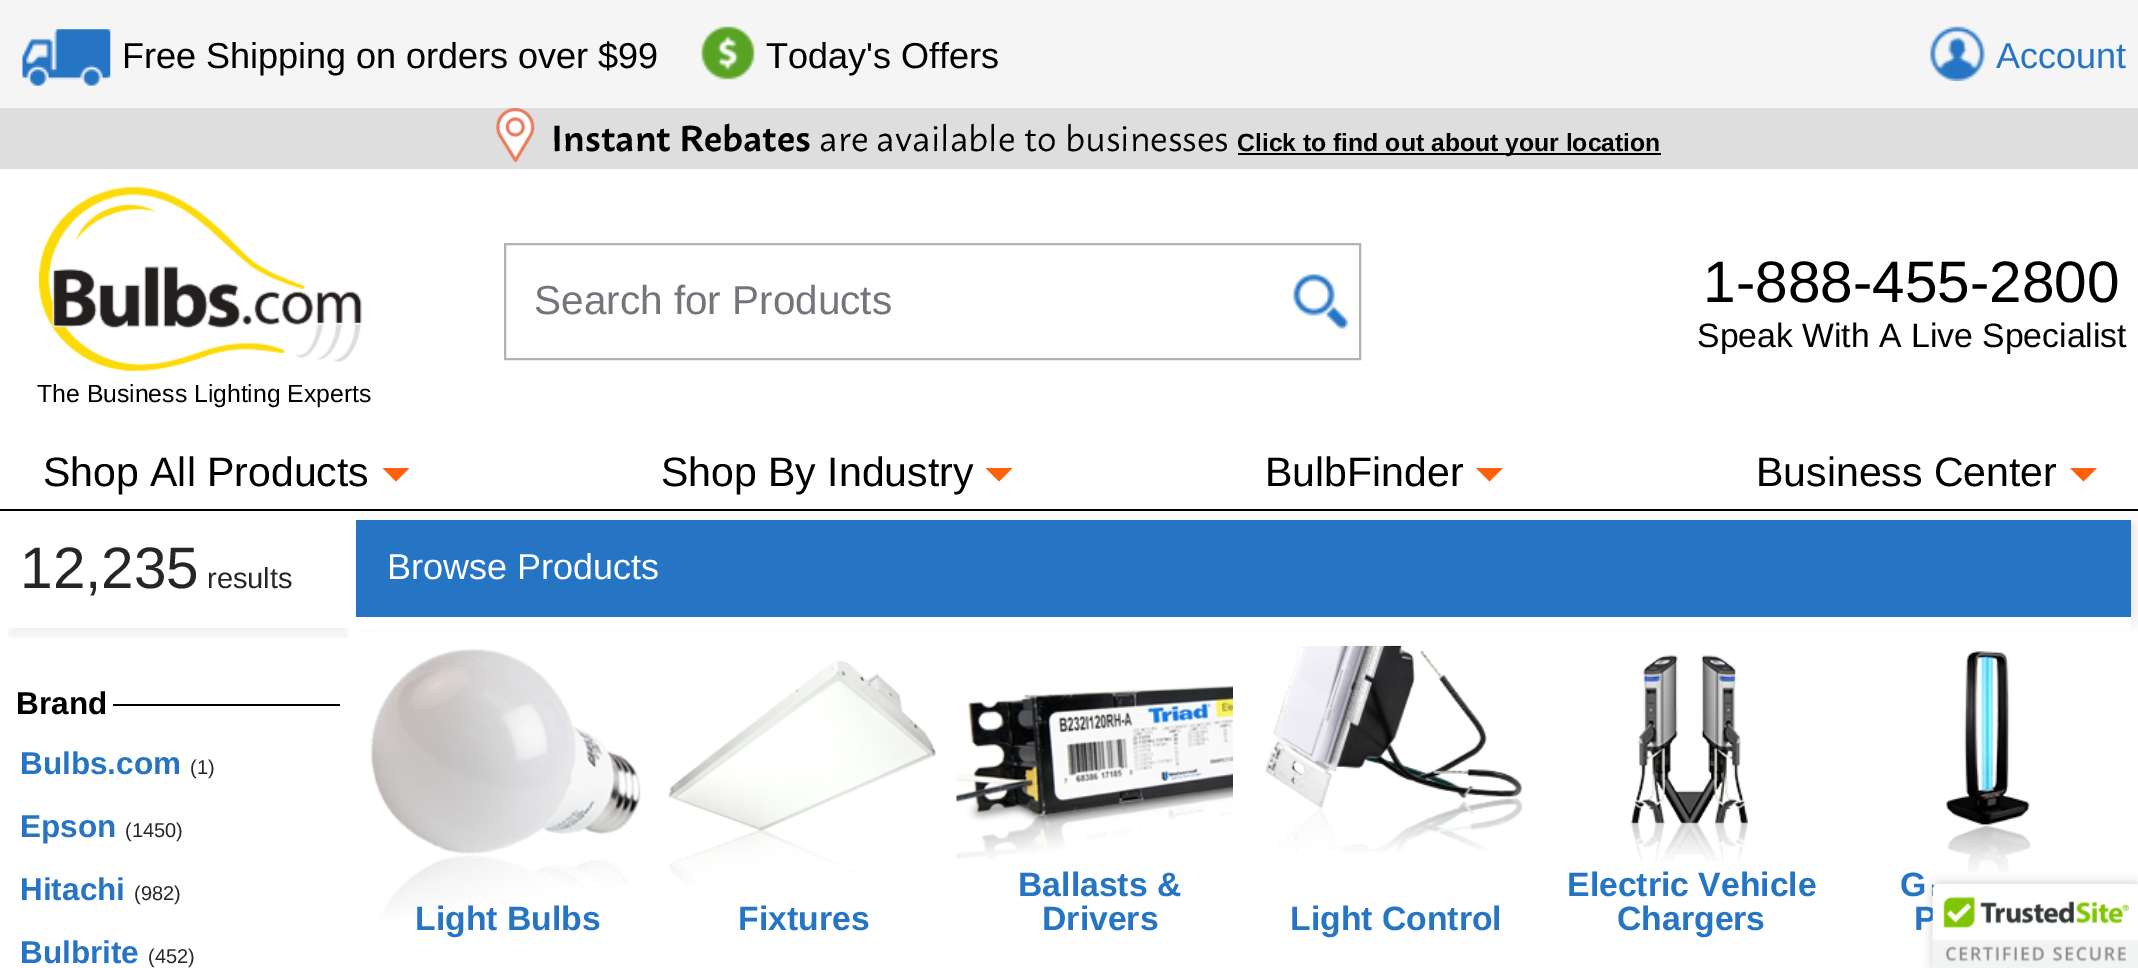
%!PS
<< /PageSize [2138 968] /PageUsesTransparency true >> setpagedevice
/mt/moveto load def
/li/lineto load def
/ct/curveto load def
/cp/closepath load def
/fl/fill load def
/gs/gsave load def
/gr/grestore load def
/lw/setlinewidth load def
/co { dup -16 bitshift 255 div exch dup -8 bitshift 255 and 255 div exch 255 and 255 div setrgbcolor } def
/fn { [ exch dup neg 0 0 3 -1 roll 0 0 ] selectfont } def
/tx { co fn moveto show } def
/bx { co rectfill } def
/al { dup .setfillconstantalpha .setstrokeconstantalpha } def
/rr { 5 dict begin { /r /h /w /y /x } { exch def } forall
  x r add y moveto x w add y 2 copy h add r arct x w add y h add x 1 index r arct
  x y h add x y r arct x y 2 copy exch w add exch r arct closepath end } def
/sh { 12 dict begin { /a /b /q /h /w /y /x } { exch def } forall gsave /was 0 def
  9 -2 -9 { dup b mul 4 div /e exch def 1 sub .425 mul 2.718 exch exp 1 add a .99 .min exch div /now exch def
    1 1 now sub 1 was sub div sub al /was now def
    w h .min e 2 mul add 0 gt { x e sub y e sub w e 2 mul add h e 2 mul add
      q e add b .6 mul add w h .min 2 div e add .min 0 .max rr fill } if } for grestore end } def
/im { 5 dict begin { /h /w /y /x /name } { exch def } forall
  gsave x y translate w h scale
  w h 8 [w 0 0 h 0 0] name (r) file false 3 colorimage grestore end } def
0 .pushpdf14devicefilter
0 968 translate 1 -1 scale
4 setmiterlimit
0 0 2138 968 16#FFFFFF bx
0 0 2138 108 16#F5F5F5 bx
(media/1.raw) 22 29 89 57 im
(media/2.raw) 701 26 54 54 im
(media/3.raw) 1930 26 55 55 im
0 108 2138 61 16#DEDEDE bx
(media/4.raw) 495 108 40 54 im
1238 153 423 2 16#000000 bx
16#B2B2B2 co
2 lw
505 244 855 115 rectstroke
(media/5.raw) 1293 274 55 55 im
(media/6.raw) 38 187 324 184 im
16#000000 co
360 524 1775 97 0 7 .1 sh
0 509 2138 2 16#000000 bx
16#FF600A co
382.5 468 mt 409.5 468 li 396 481.5 li cp fl
985.5 468 mt 1012.5 468 li 999 481.5 li cp fl
1476 468 mt 1503 468 li 1489.5 481.5 li cp fl
2070 468 mt 2097 468 li 2083.5 481.5 li cp fl
356 520 1775 97 16#2675C5 bx
gs
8 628 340 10 rectclip
16#000000 co
9 529 338 108 0 4.5 .05 sh
gr
16#FFFFFF co
0 520 mt 0 628 li 338 628 li 9 628 li 9 520 li cp fl
18 628 mt 356 628 li 356 520 li 346 520 li 346 628 li cp fl
113 704 227 2 16#000000 bx
356 617 1775 13 16#FFFFFF bx
(media/7.raw) 370 648 271 271 im
(media/8.raw) 668 660 268 225 im
(media/9.raw) 956 685 277 175 im
(media/10.raw) 1265 645 258 207 im
(media/11.raw) 1630 655 118 207 im
(media/12.raw) 1946 651 85 221 im
16#000000 co
1933 884 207 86 5 5.5 .2 sh
(Free Shipping on orders over $99) 122 68 /LiberationSans-Regular 36 16#000000 tx
(Today's Offers) 766 68 /LiberationSans-Regular 36 16#000000 tx
(Account) 1996 68 /LiberationSans-Regular 36 16#2675C5 tx
(Instant Rebates) 551 151 /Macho-SemiBold 36 16#000000 tx
(are available to businesses) 819 151 /Macho-Regular 36 16#000000 tx
(Click to find out about your location) 1237 151 /LiberationSans-Bold 24.75 16#000000 tx
(Search for Products) 534 314 /LiberationSans-Regular 40.5 16#727579 tx
(1-888-455-2800) 1703 302 /LiberationSans-Regular 58.5 16#000000 tx
(Speak With A Live Specialist) 1697 347 /LiberationSans-Regular 33.75 16#000000 tx
(The Business Lighting Experts) 37 402 /LiberationSans-Regular 24.75 16#000000 tx
(Shop All Products) 43 486 /LiberationSans-Regular 41 16#000000 tx
(Shop By Industry) 661 486 /LiberationSans-Regular 41 16#000000 tx
(BulbFinder) 1265 486 /LiberationSans-Regular 41 16#000000 tx
(Business Center) 1756 486 /LiberationSans-Regular 41 16#000000 tx
(12,235) 20 588 /LiberationSans-Regular 58.5 16#25262A tx
(results) 207 588 /LiberationSans-Regular 29 16#25262A tx
(Brand) 16 714 /LiberationSans-Bold 31.5 16#000000 tx
(Bulbs.com) 20 774 /LiberationSans-Bold 31.5 16#2675C5 tx
(\(1\)) 190 774 /LiberationSans-Regular 20 16#25262A tx
(Epson) 20 837 /LiberationSans-Bold 31.5 16#2675C5 tx
(\(1450\)) 125 837 /LiberationSans-Regular 20 16#25262A tx
(Hitachi) 20 900 /LiberationSans-Bold 31.5 16#2675C5 tx
(\(982\)) 134 900 /LiberationSans-Regular 20 16#25262A tx
(Bulbrite) 20 963 /LiberationSans-Bold 31.5 16#2675C5 tx
(\(452\)) 148 963 /LiberationSans-Regular 20 16#25262A tx
(Browse Products) 387 579 /LiberationSans-Regular 36 16#FFFFFF tx
(Light Bulbs) 415 930 /LiberationSans-Bold 33.75 16#2675C5 tx
(Fixtures) 738 930 /LiberationSans-Bold 33.75 16#2675C5 tx
(Ballasts &) 1018 896 /LiberationSans-Bold 33.75 16#2675C5 tx
(Drivers) 1042 930 /LiberationSans-Bold 33.75 16#2675C5 tx
(Light Control) 1290 930 /LiberationSans-Bold 33.75 16#2675C5 tx
(Electric Vehicle) 1567 896 /LiberationSans-Bold 33.75 16#2675C5 tx
(Chargers) 1617 930 /LiberationSans-Bold 33.75 16#2675C5 tx
(G) 1900 896 /LiberationSans-Bold 33.75 16#2675C5 tx
(P) 1914 930 /LiberationSans-Bold 33.75 16#2675C5 tx
16#FFFFFF co
1938 884 mt 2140 884 li 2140 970 li 1933 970 li 1933 889 li 1933 886 1935 884 1938 884 ct cp fl
(media/13.raw) 1932 884 206 84 im
.poppdf14devicefilter showpage
